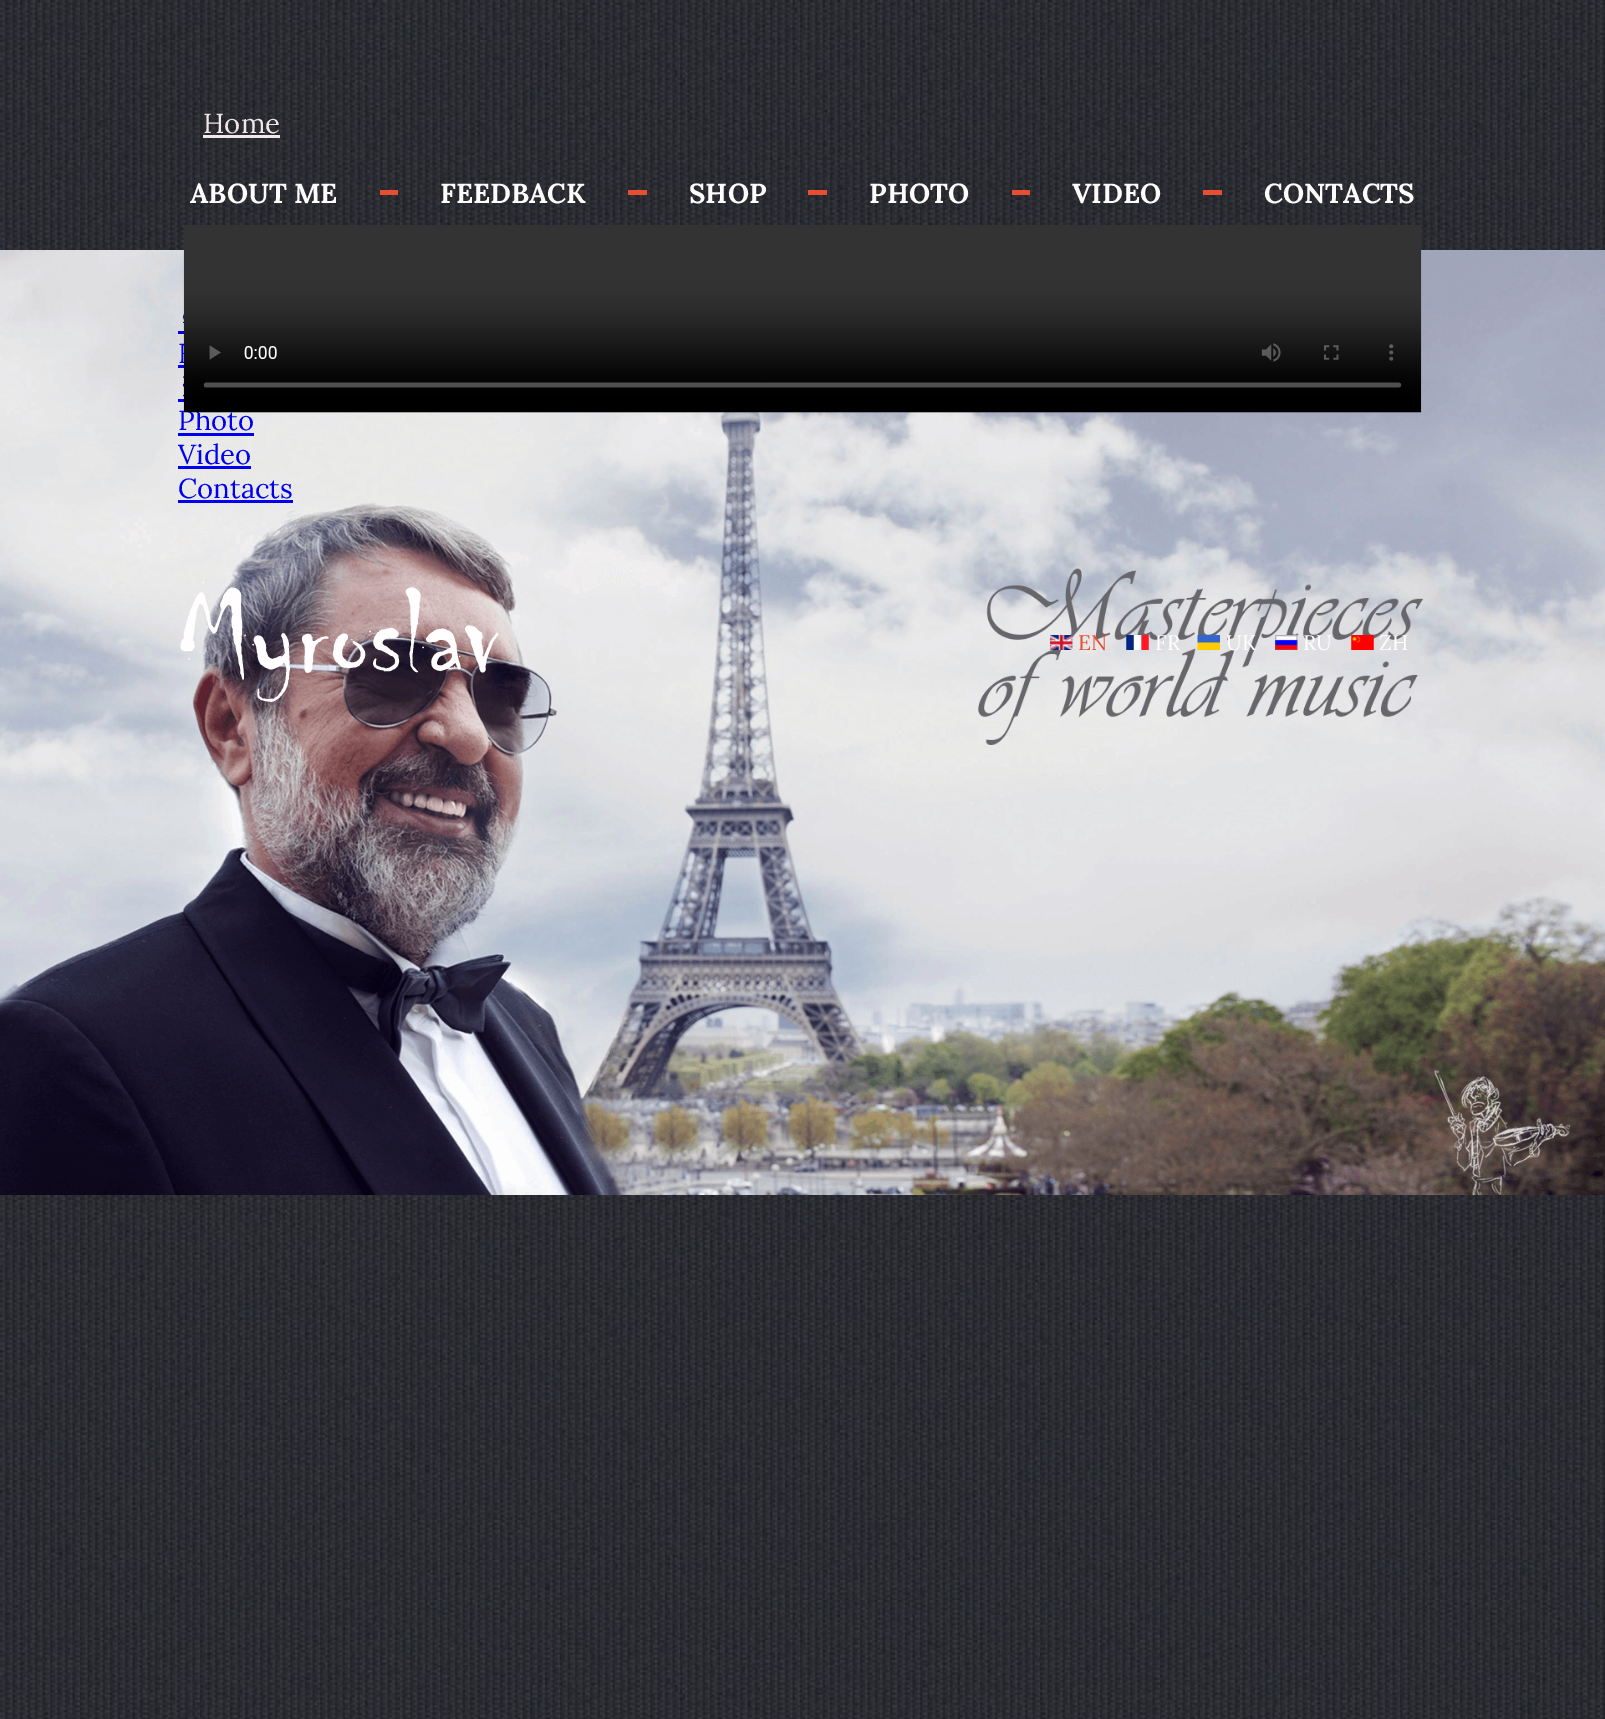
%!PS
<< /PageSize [1605 1719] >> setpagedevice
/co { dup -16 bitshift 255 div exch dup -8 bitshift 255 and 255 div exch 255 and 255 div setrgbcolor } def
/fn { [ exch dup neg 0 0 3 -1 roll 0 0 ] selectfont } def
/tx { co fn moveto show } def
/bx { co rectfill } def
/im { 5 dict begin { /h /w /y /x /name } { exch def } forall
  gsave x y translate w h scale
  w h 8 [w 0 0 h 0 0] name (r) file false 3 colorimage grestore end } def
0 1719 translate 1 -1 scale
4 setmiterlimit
0 0 1605 1719 16#FFFFFF bx
(media/1.raw) 0 0 1605 1719 im
203 135 77 3 16#F0E8E8 bx
(media/8.raw) 0 250 1605 945 im
178 331 6 3 16#0000EE bx
178 365 6 3 16#0000EE bx
178 399 6 3 16#0000EE bx
178 433 76 3 16#0000EE bx
178 466 73 3 16#0000EE bx
178 500 115 3 16#0000EE bx
(media/2.raw) 1050 635 23 15 im
(media/3.raw) 1126 635 23 15 im
(media/4.raw) 1197 635 23 15 im
(media/5.raw) 1275 635 23 15 im
(media/6.raw) 1351 635 23 15 im
380 190 18 5 16#E84E32 bx
628 190 19 5 16#E84E32 bx
808 190 19 5 16#E84E32 bx
1012 190 18 5 16#E84E32 bx
1203 190 19 5 16#E84E32 bx
(Home) 203 133 /lora-Regular 27.5 16#F0E8E8 tx
(F) 178 363 /lora-Regular 27.5 16#0000EE tx
(Photo) 178 430 /lora-Regular 27.5 16#0000EE tx
(Video) 178 464 /lora-Regular 27.5 16#0000EE tx
(Contacts) 178 498 /lora-Regular 27.5 16#0000EE tx
(Myroslav) 178 673 /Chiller-Regular 127.5 16#FFFDFD tx
(EN) 1078 650 /lora-Regular 21 16#E84E32 tx
(FR) 1155 650 /lora-Regular 21 16#FFFDFD tx
(UK) 1226 650 /lora-Regular 21 16#FFFDFD tx
(RU) 1303 650 /lora-Regular 21 16#FFFDFD tx
(ZH) 1379 650 /lora-Regular 21 16#FFFDFD tx
(ABOUT ME) 190 203 /lora-Bold 27.5 16#FFFDFD tx
(FEEDBACK) 440 203 /lora-Bold 27.5 16#FFFDFD tx
(SHOP) 689 203 /lora-Bold 27.5 16#FFFDFD tx
(PHOTO) 869 203 /lora-Bold 27.5 16#FFFDFD tx
(VIDEO) 1072 203 /lora-Bold 27.5 16#FFFDFD tx
(CONTACTS) 1264 203 /lora-Bold 27.5 16#FFFDFD tx
(media/7.raw) 183 225 1239 188 im
showpage
